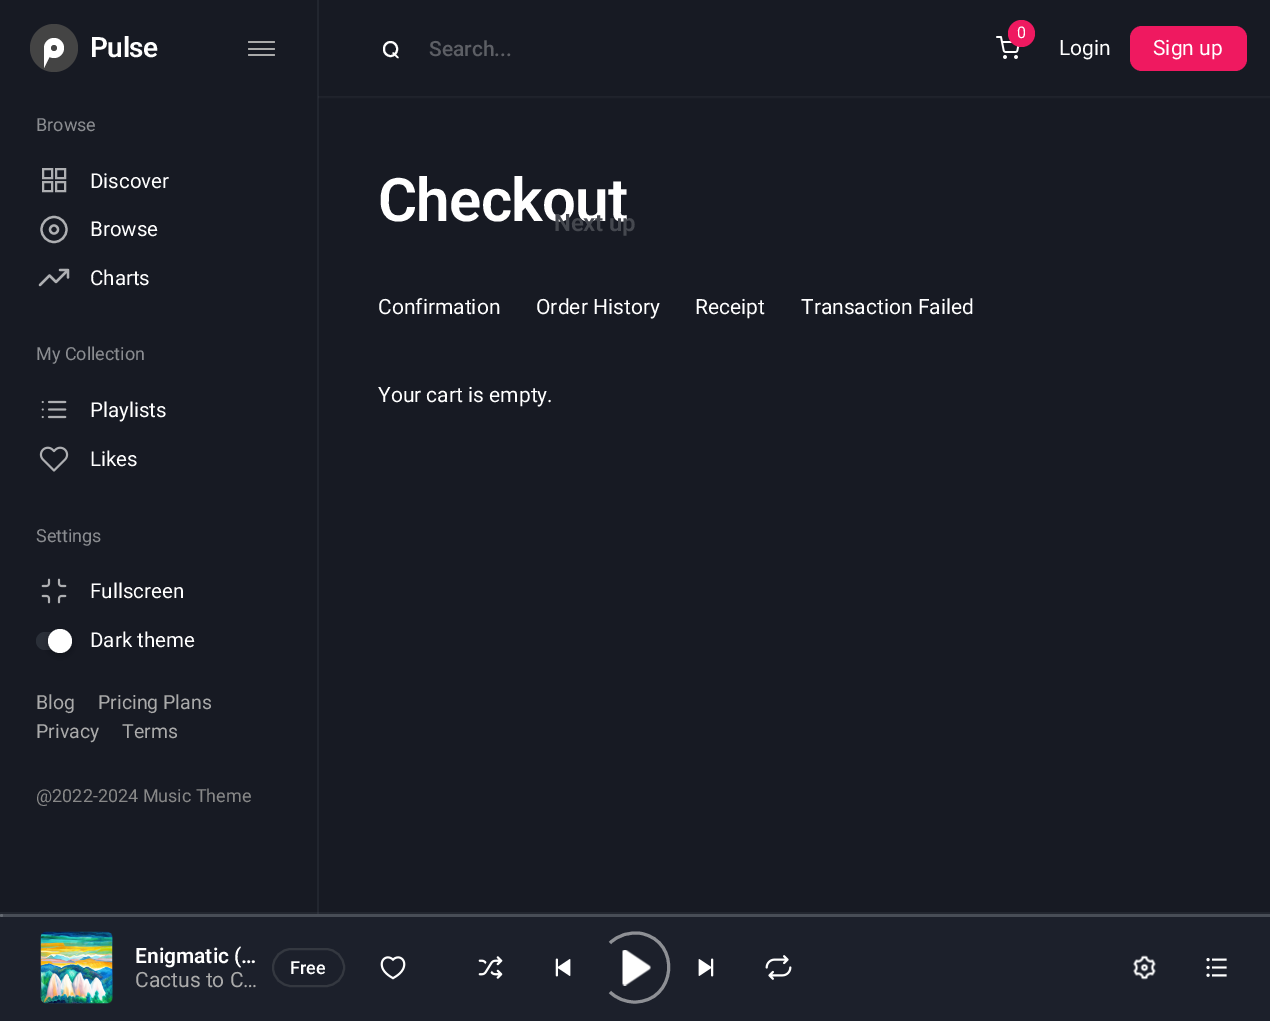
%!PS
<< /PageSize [1270 1021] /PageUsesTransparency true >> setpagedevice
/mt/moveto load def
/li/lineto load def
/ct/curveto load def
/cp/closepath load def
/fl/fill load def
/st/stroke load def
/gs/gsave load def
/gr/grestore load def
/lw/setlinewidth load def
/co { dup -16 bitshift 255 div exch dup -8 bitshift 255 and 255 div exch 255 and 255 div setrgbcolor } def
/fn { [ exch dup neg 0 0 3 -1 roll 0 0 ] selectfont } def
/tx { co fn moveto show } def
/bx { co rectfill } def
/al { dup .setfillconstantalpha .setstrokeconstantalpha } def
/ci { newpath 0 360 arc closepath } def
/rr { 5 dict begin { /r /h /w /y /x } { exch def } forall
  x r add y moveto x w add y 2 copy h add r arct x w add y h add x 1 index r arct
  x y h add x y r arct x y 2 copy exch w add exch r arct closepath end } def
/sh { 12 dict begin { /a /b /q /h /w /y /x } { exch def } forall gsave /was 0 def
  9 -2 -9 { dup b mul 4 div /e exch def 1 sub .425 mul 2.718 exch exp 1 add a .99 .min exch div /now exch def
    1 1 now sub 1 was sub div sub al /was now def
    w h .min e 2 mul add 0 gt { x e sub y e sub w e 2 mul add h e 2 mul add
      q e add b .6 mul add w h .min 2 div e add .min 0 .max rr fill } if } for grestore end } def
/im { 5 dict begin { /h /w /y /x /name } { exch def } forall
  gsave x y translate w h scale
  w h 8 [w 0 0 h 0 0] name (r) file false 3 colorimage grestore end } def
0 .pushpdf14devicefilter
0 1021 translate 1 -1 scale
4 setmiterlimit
0 0 1270 1021 16#171A23 bx
gs
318 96 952 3 rectclip
16#828C96 co
0 2 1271 96 0 1 .1 sh
gr
0 96 318 3 16#171A23 bx
0.1 al
317 0 2 914 16#828C96 bx
1 al
16#444444 co
54 48 24 ci fl
16#FFFFFF co
54 48 10 ci fl
44 48 mt 54 48 li 44 68 li cp fl
16#444444 co
54 48 3 ci fl
16#AAAAAA co
248 48 27 2 1 rr fl
248 41 27 2 1 rr fl
248 54 27 2 1 rr fl
16#AEAFB2 co
2 lw
43 169 9 9 rectstroke
56 169 9 9 rectstroke
56 182 9 9 rectstroke
43 182 9 9 rectstroke
2.2 lw
54 229.5 12.5 ci st
54 229.5 4 ci st
1 setlinecap
1 setlinejoin
68 270 mt 56 282 li 49.5 275.5 li 40 285 li 60 270 mt 68 270 li 68 277.5 li st
(media/1.raw) 41 400 26 19 im
(media/2.raw) 39 446 30 26 im
(media/3.raw) 41 578 26 26 im
16#2A2F38 co
36 632 36 18 9 rr fl
16#000000 co
48 632 24 24 12 4 .26 sh
16#FFFFFF co
60 641 12 ci fl
2 lw
0 setlinecap
0 setlinejoin
384 42 13 14 6.5 rr st
394 52.5 mt 397.5 56 li 399.5 58 398.5 59 396.5 57.5 ct 392.5 53.5 li 392 52.5 393.5 52 394 52.5 ct cp fl
(media/4.raw) 996 36 24 23 im
16#EF1960 co
1021.5 33.5 13.5 ci fl
1130 26 117 45 12 rr fl
0.1 al
16#828C96 co
0 912 mt 0 914 li 1270 914 li 1270 1020 li 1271 1020 li 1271 912 li cp fl
1 al
0 914 1270 107 16#1C202B bx
16#484D56 co
1.5 915.5 1.5 ci fl
0.35 al
16#9BA0A5 co
0 914 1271 3 1.5 rr fl
1 al
(media/5.raw) 1133 955 23 25 im
(media/6.raw) 1206 958 21 19 im
16#252933 co
41 932 72 72 6 rr fl
(media/7.raw) 40 931 73 73 im
16#343840 co
273 949 71 37 18.5 rr st
(media/8.raw) 380 956 26 24 im
(media/9.raw) 478 956 25 23 im
(media/10.raw) 555 958 16 19 im
(media/11.raw) 622 950 29 36 im
16#8E9095 co
3 lw
610 943 mt 618 935 630 931.5 641.5 933.5 ct 681.5 941.5 676 1002 634.5 1002 ct 625.5 1002 616.5 998.5 610 992 ct st
(media/12.raw) 698 958 16 19 im
(media/13.raw) 765 955 27 25 im
/Roboto-SemiBold 28 fn
16#FFFFFF co
90 57 mt -.5 0 (Pulse) ashow
(Browse) 36 131 /Roboto-Regular 18 16#8B8D91 tx
(Discover) 90 188 /Roboto-Regular 20.5 16#FFFFFF tx
(Browse) 90 236 /Roboto-Regular 20.5 16#FFFFFF tx
(Charts) 90 285 /Roboto-Regular 20.5 16#FFFFFF tx
(My Collection) 36 360 /Roboto-Regular 18 16#8B8D91 tx
(Playlists) 90 417 /Roboto-Regular 20.5 16#FFFFFF tx
(Likes) 90 466 /Roboto-Regular 20.5 16#FFFFFF tx
(Settings) 36 542 /Roboto-Regular 18 16#8B8D91 tx
(Fullscreen) 90 598 /Roboto-Regular 20.5 16#FFFFFF tx
(Dark theme) 90 647 /Roboto-Regular 20.5 16#FFFFFF tx
(Blog) 36 709 /Roboto-Regular 19.5 16#AAAAAA tx
(Pricing Plans) 98 709 /Roboto-Regular 19.5 16#AAAAAA tx
(Privacy) 36 738 /Roboto-Regular 19.5 16#AAAAAA tx
(Terms) 122 738 /Roboto-Regular 19.5 16#AAAAAA tx
(@2022-2024 Music Theme) 36 802 /Roboto-Regular 18 16#888888 tx
(Search...) 429 56 /Roboto-Medium 21 16#5D5F65 tx
(0) 1017 38 /Roboto-Regular 16 16#FFFFFF tx
(Login) 1059 55 /Roboto-Regular 21 16#FFFFFF tx
(Sign up) 1153 55 /Roboto-Regular 21 16#FFFFFF tx
/Roboto-SemiBold 60 fn
378 221 mt -.75 0 (Checkout) ashow
(Confirmation) 378 314 /Roboto-Regular 21 16#FFFFFF tx
(Order History) 536 314 /Roboto-Regular 21 16#FFFFFF tx
(Receipt) 695 314 /Roboto-Regular 21 16#FFFFFF tx
(Transaction Failed) 801 314 /Roboto-Regular 21 16#FFFFFF tx
(Your cart is empty.) 378 402 /Roboto-Regular 21 16#FFFFFF tx
/Roboto-SemiBold 24 fn
16#45484F co
554 231 mt -.25 0 (Next up) ashow
(Enigmatic \(…) 135 963 /Roboto-SemiBold 21 16#FFFFFF tx
(Cactus to C…) 135 987 /Roboto-Regular 21 16#AAAAAA tx
(Free) 290 974 /Roboto-Medium 18 16#FFFFFF tx
.poppdf14devicefilter showpage
